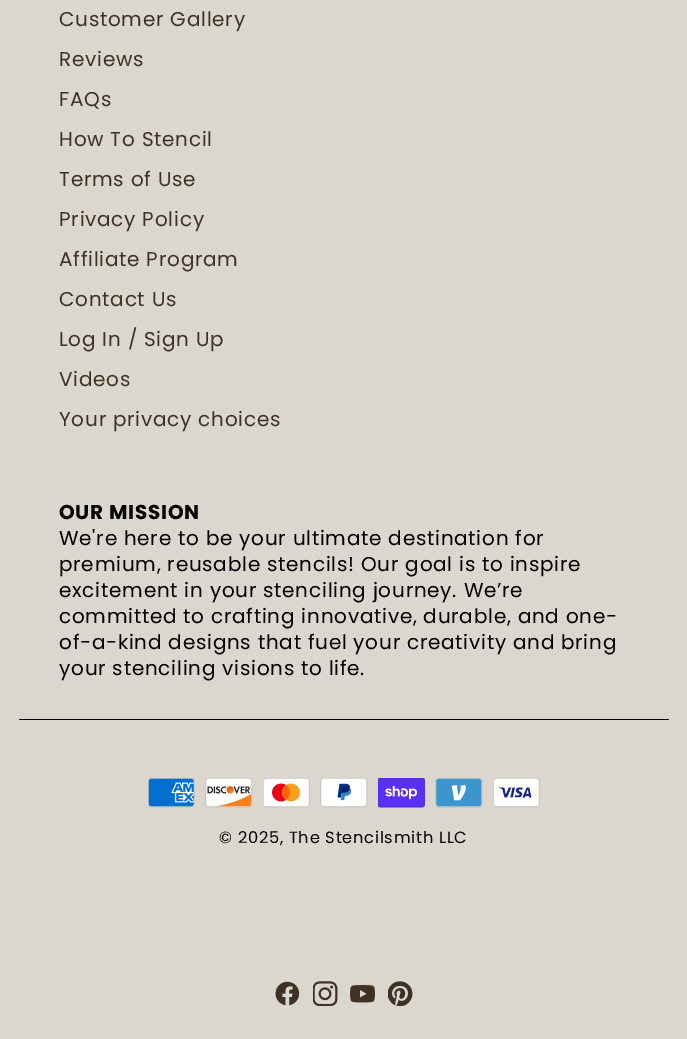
%!PS
<< /PageSize [687 1039] >> setpagedevice
/mt/moveto load def
/co { dup -16 bitshift 255 div exch dup -8 bitshift 255 and 255 div exch 255 and 255 div setrgbcolor } def
/fn { [ exch dup neg 0 0 3 -1 roll 0 0 ] selectfont } def
/bx { co rectfill } def
/im { 5 dict begin { /h /w /y /x /name } { exch def } forall
  gsave x y translate w h scale
  w h 8 [w 0 0 h 0 0] name (r) file false 3 colorimage grestore end } def
0 1039 translate 1 -1 scale
4 setmiterlimit
0 0 687 1039 16#DBD6CE bx
19 719 650 1 16#000000 bx
(media/1.raw) 148 778 47 30 im
(media/2.raw) 205 778 48 30 im
(media/3.raw) 263 778 47 30 im
(media/4.raw) 320 778 48 30 im
(media/5.raw) 378 778 47 30 im
(media/6.raw) 435 778 48 30 im
(media/7.raw) 493 778 47 30 im
(media/8.raw) 275 981 25 25 im
(media/9.raw) 313 981 25 25 im
(media/10.raw) 350 985 25 18 im
(media/11.raw) 388 981 25 25 im
/Poppins-Regular 20 fn
16#403125 co
59 26 mt .75 0 (Customer Gallery) ashow
59 66 mt .75 0 (Reviews) ashow
59 106 mt .75 0 (FAQs) ashow
59 146 mt .75 0 (How To Stencil) ashow
59 186 mt .75 0 (Terms of Use) ashow
59 226 mt .75 0 (Privacy Policy) ashow
59 266 mt .75 0 (Affiliate Program) ashow
59 306 mt .75 0 (Contact Us) ashow
59 346 mt .75 0 (Log In / Sign Up) ashow
59 386 mt .75 0 (Videos) ashow
59 426 mt .75 0 (Your privacy choices) ashow
/Poppins-Bold 20 fn
16#000000 co
59 519 mt .75 0 (OUR MISSION) ashow
/Poppins-Regular 20 fn
59 545 mt .75 0 (We're here to be your ultimate destination for) ashow
59 571 mt .75 0 (premium, reusable stencils! Our goal is to inspire) ashow
59 597 mt .75 0 (excitement in your stenciling journey. We’re) ashow
59 623 mt .75 0 (committed to crafting innovative, durable, and one-) ashow
59 649 mt .75 0 (of-a-kind designs that fuel your creativity and bring) ashow
59 675 mt .75 0 (your stenciling visions to life.) ashow
/Poppins-Regular 16.25 fn
219 843 mt .75 0 (© 2025, The Stencilsmith LLC) ashow
showpage
